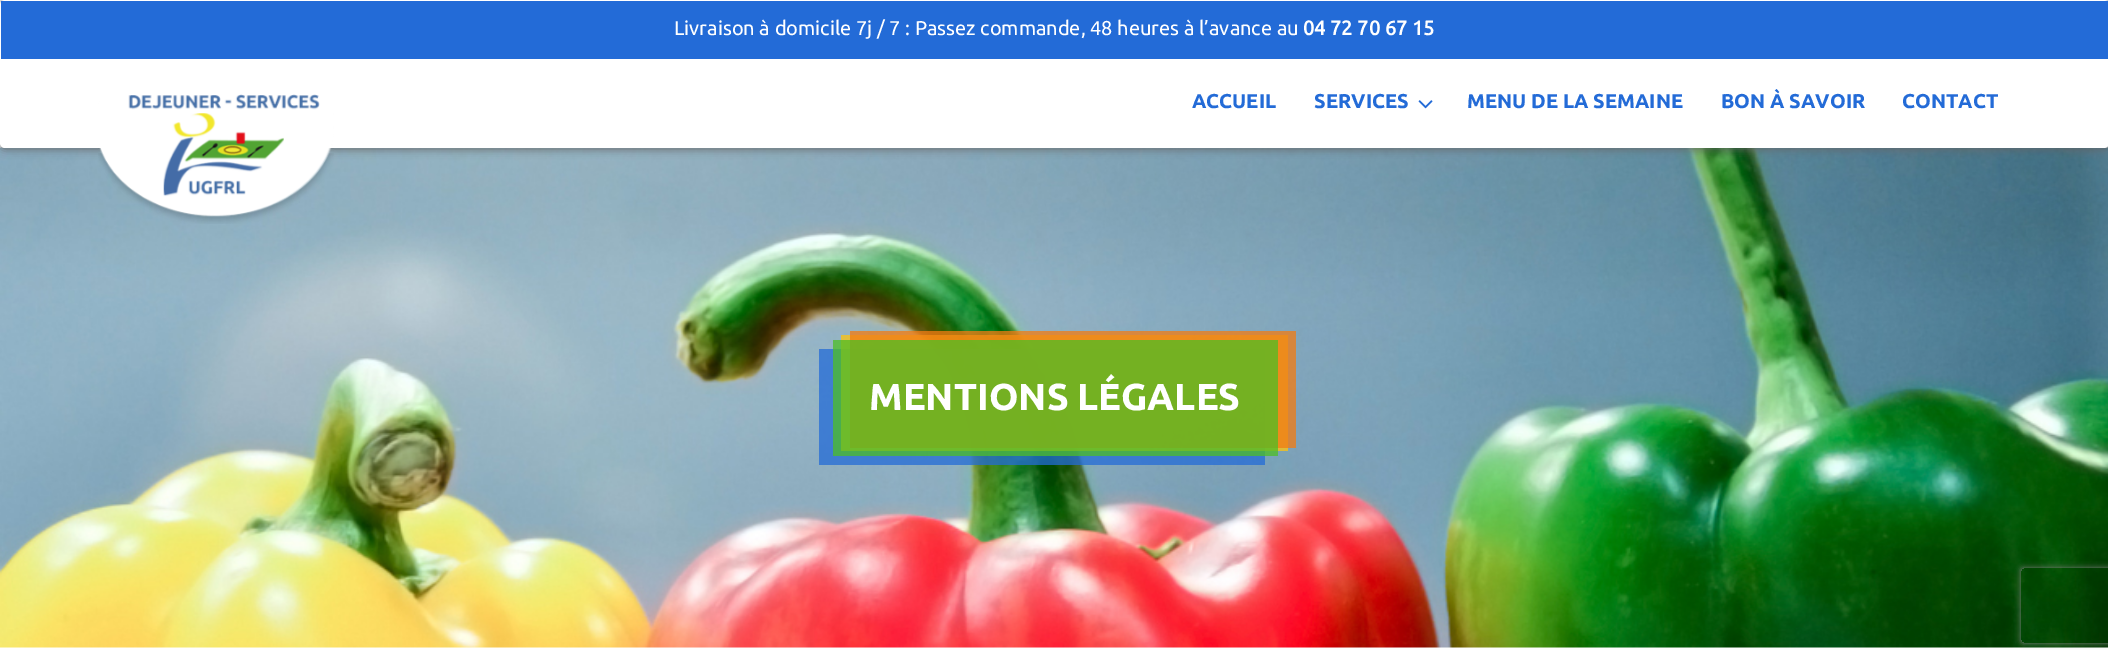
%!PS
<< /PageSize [2108 659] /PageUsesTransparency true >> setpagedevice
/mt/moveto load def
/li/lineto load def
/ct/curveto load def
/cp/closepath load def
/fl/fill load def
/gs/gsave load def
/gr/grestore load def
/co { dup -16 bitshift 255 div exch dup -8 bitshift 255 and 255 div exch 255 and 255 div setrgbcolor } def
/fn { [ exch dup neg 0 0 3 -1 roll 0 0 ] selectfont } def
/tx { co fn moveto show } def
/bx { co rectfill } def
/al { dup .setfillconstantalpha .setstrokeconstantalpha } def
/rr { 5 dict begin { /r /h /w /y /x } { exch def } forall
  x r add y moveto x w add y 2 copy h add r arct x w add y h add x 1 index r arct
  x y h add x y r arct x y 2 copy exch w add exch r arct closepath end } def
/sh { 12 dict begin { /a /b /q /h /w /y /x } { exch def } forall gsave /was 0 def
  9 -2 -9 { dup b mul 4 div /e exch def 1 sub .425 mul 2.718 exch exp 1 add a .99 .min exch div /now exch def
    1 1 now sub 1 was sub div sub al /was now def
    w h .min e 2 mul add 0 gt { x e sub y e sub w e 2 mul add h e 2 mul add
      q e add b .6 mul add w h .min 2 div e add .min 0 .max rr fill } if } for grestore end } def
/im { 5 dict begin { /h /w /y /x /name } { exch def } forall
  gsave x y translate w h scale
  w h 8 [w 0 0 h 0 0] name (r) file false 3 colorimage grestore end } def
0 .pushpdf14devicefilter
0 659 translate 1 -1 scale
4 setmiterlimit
0 0 2108 659 16#FFFFFF bx
(media/3.raw) 0 147 2108 501 im
16#666666 co
0 1 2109 148 5 4.5 1 sh
16#FFFFFF co
0 0 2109 148 5 rr fl
1 1 2107 58 16#236BD7 bx
(media/1.raw) 98 94 236 130 im
(media/2.raw) 1418 100 15 9 im
0.75 al
819 349 446 116 16#236BD7 bx
841 335 447 116 16#FFC30E bx
850 331 446 117 16#F27B12 bx
833 340 445 116 16#4DBE24 bx
gs
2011 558 mt 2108 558 li 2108 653 li 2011 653 li cp 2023.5 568 mt 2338.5 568 li 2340 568 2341 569 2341 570.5 ct 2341 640.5 li 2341 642 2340 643 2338.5 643 ct 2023.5 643 li 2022 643 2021 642 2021 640.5 ct 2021 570.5 li 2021 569 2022 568 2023.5 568 ct cp eoclip newpath
1 al
16#808080 co
2021 568 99 75 2.5 3 1 sh
gr
1 al
(Livraison à domicile 7j / 7 : Passez commande, 48 heures à l’avance au) 674 35 /Ubuntu-Regular 20 16#FFFFFF tx
(04 72 70 67 15) 1303 35 /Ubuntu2-Bold 20 16#FFFFFF tx
(ACCUEIL) 1192 108 /Ubuntu-Bold 20 16#236BD7 tx
(SERVICES) 1314 108 /Ubuntu-Bold 20 16#236BD7 tx
(MENU DE LA SEMAINE) 1467 108 /Ubuntu-Bold 20 16#236BD7 tx
(BON À SAVOIR) 1721 108 /Ubuntu-Bold 20 16#236BD7 tx
(CONTACT) 1902 108 /Ubuntu-Bold 20 16#236BD7 tx
(MENTIONS LÉGALES) 869 410 /Ubuntu-Bold 37.5 16#FFFFFF tx
.poppdf14devicefilter showpage
